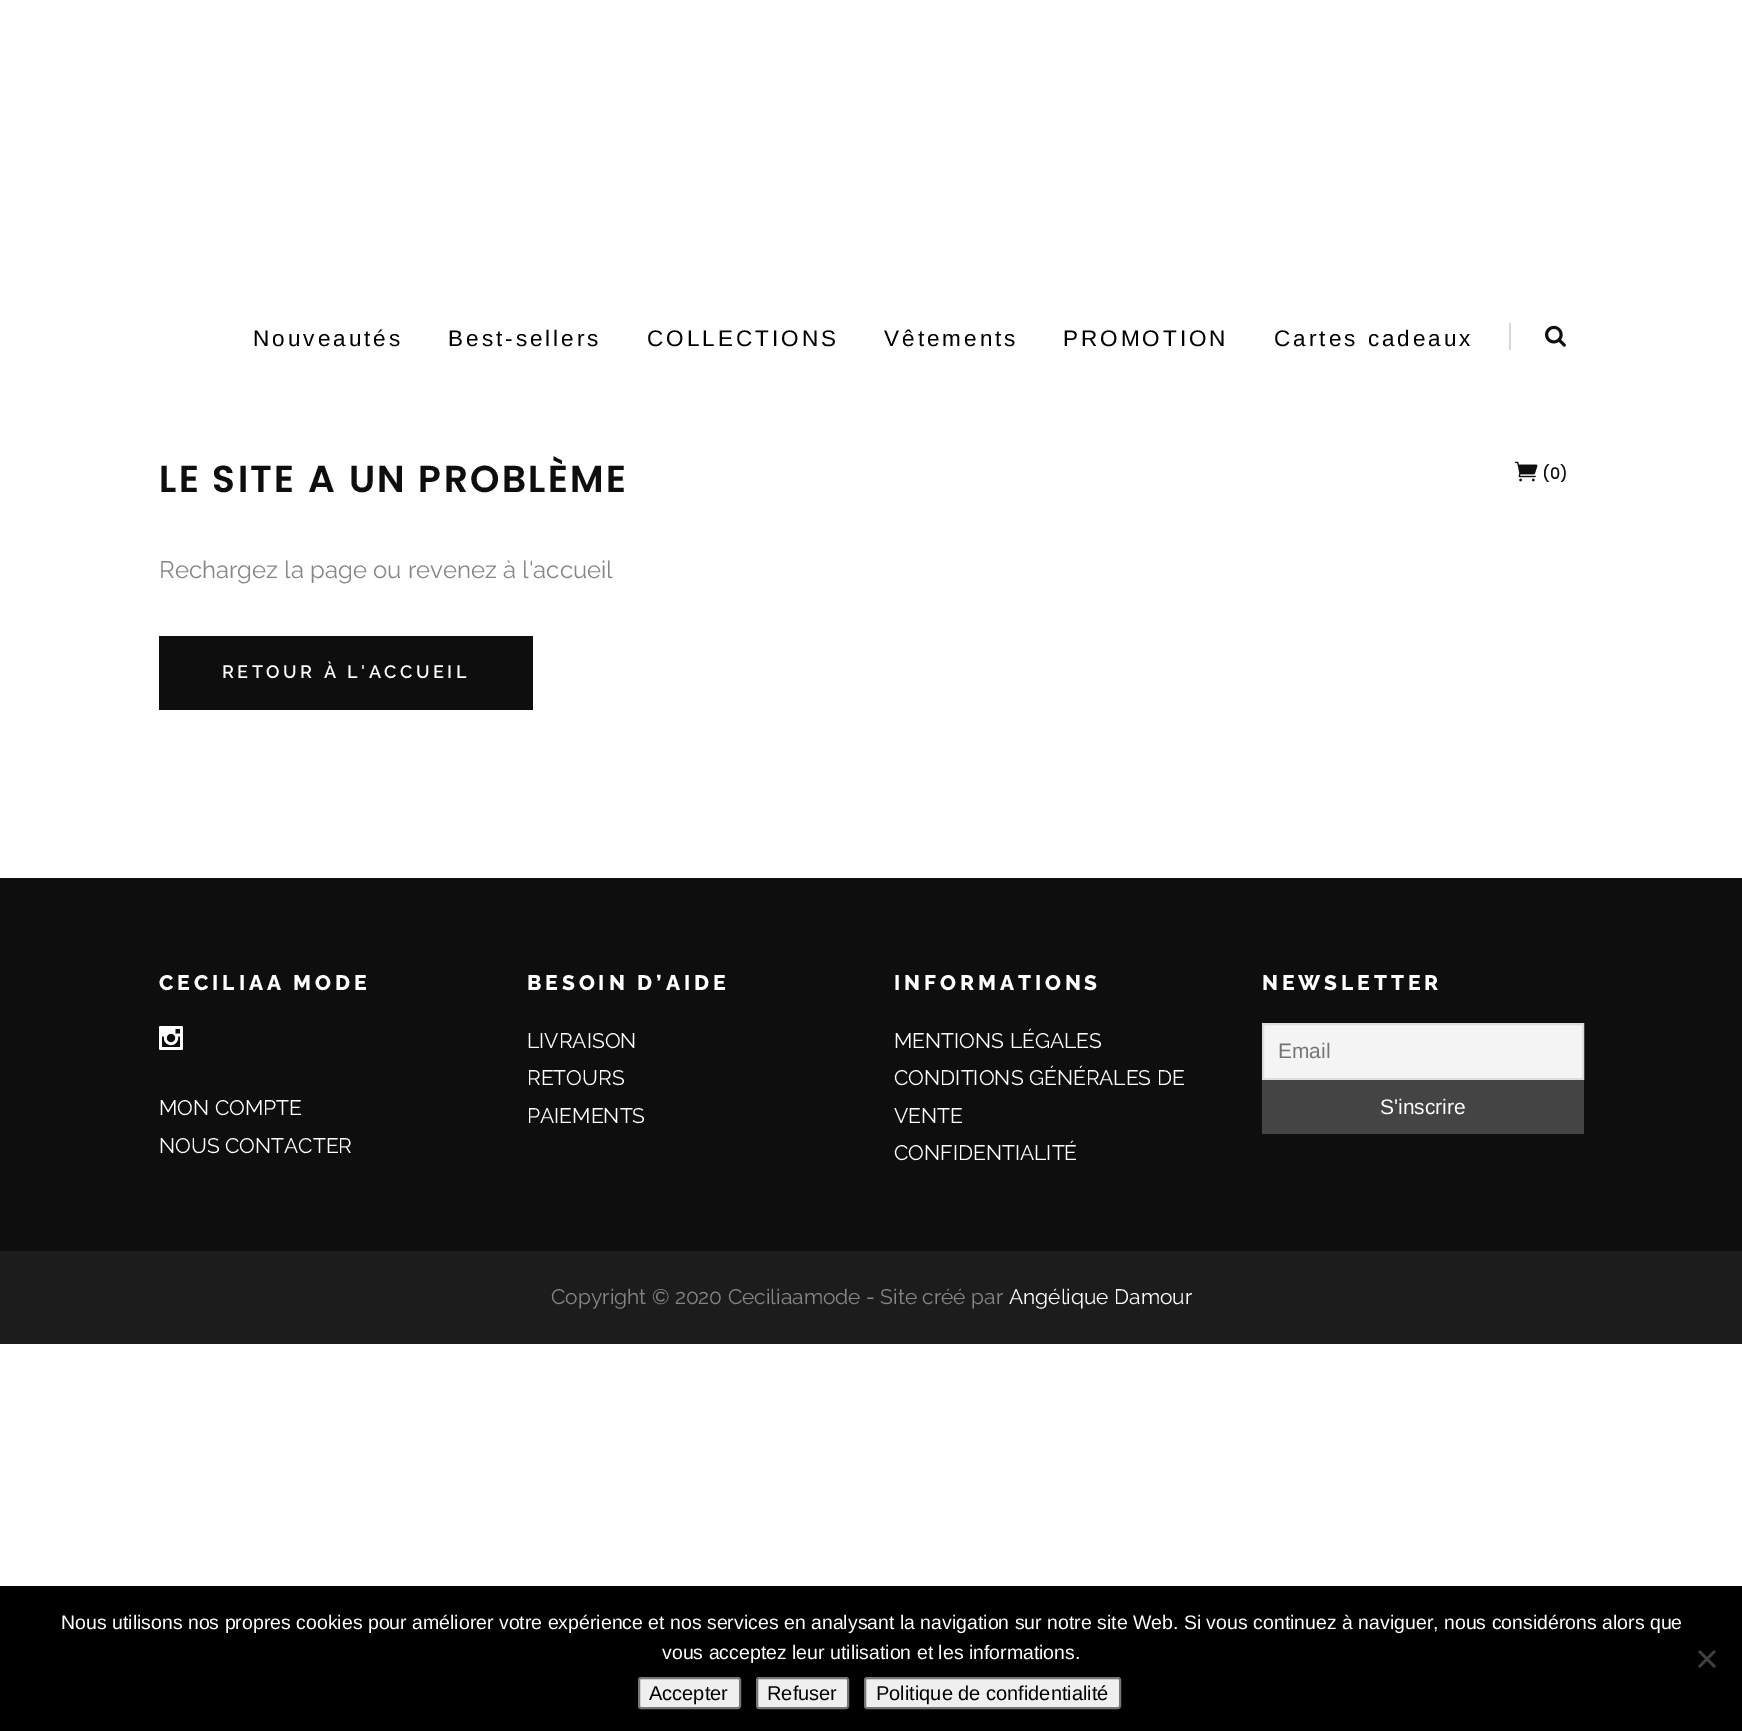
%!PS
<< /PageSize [1742 1731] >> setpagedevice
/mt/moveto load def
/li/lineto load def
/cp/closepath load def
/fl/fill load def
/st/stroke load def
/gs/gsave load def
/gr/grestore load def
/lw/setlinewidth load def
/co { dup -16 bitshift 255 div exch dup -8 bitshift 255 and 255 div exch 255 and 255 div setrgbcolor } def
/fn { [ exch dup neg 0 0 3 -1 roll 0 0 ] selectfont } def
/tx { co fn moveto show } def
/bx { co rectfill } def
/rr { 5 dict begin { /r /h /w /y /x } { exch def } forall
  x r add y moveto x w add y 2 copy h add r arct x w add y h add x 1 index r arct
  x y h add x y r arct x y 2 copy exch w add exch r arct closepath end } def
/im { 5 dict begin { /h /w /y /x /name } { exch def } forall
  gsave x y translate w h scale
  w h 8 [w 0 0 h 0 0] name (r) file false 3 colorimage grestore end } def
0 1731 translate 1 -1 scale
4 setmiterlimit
0 0 1742 1731 16#FFFFFF bx
1509 323 2 27 16#D7D7D7 bx
(media/1.raw) 1545 325 21 22 im
(media/2.raw) 1515 461 23 21 im
159 636 374 74 16#0E0E0E bx
0 878 1742 373 16#0E0E0E bx
(media/3.raw) 159 1026 24 24 im
16#F4F4F4 co
1263 1024 mt 1583 1024 li 1583 1079 li 1263 1079 li cp gs fl gr
16#DDDDDD co
2 lw
st
1262 1080 322 54 16#444444 bx
0 1251 1742 93 16#1C1C1C bx
0 1586 1742 145 16#000000 bx
16#404040 co
1714 1650 mt 1716 1652 li 1700 1668 li 1698 1666 li cp fl
1698 1652 mt 1700 1650 li 1716 1666 li 1714 1668 li cp fl
16#EFEFEF co
639 1678 101 30 2 rr gs fl gr
16#767676 co
st
16#EFEFEF co
757 1678 91 30 2 rr gs fl gr
16#767676 co
st
16#EFEFEF co
865 1678 255 30 2 rr gs fl gr
16#767676 co
st
/LiberationSans-Regular 22.5 fn
16#000000 co
253 346 mt 3 0 (Nouveautés) ashow
448 346 mt 3 0 (Best-sellers) ashow
647 346 mt 3 0 (COLLECTIONS) ashow
884 346 mt 3 0 (Vêtements) ashow
1063 346 mt 3 0 (PROMOTION) ashow
1274 346 mt 3 0 (Cartes cadeaux) ashow
(\(0\)) 1542 479 /Poppins-Medium 16 16#0E0E0E tx
/Poppins-SemiBold 37.5 fn
159 492 mt 2.4 0 (LE SITE A UN PROBLÈME) ashow
(Rechargez la page ou revenez à l'accueil) 159 578 /Raleway-Regular 24 16#868686 tx
/Raleway-SemiBold 18 fn
16#FFFFFF co
222 678 mt 3.5 0 (RETOUR À L'ACCUEIL) ashow
/Raleway-ExtraBold 21 fn
159 990 mt 3.9 0 (CECILIAA MODE) ashow
(MON COMPTE) 159 1115 /Raleway-Regular 21 16#FFFFFF tx
(NOUS CONTACTER) 159 1153 /Raleway-Regular 21 16#FFFFFF tx
/Raleway-ExtraBold 21 fn
527 990 mt 3.9 0 (BESOIN D’AIDE) ashow
(LIVRAISON) 527 1048 /Raleway-Regular 21 16#FFFFFF tx
(RETOURS) 527 1085 /Raleway-Regular 21 16#FFFFFF tx
(PAIEMENTS) 527 1123 /Raleway-Regular 21 16#FFFFFF tx
/Raleway-ExtraBold 21 fn
894 990 mt 3.9 0 (INFORMATIONS) ashow
(MENTIONS LÉGALES) 894 1048 /Raleway-Regular 21 16#FFFFFF tx
(CONDITIONS GÉNÉRALES DE) 894 1085 /Raleway-Regular 21 16#FFFFFF tx
(VENTE) 894 1123 /Raleway-Regular 21 16#FFFFFF tx
(CONFIDENTIALITÉ) 894 1160 /Raleway-Regular 21 16#FFFFFF tx
/Raleway-ExtraBold 21 fn
1262 990 mt 3.9 0 (NEWSLETTER) ashow
(Email) 1278 1058 /LiberationSans-Regular 21 16#757575 tx
(S'inscrire) 1380 1114 /LiberationSans-Regular 21 16#FFFFFF tx
(Copyright © 2020 Ceciliaamode - Site créé par) 551 1304 /Raleway-Regular 21 16#868686 tx
(Angélique Damour) 1009 1304 /Raleway-Regular 21 16#FFFFFF tx
(Nous utilisons nos propres cookies pour améliorer votre expérience et nos services en analysant la navigation sur notre site Web. Si vous continuez à naviguer, nous considérons alors que) 61 1629 /LiberationSans-Regular 19.5 16#FFFFFF tx
(vous acceptez leur utilisation et les informations.) 662 1659 /LiberationSans-Regular 19.5 16#FFFFFF tx
(Accepter) 649 1700 /LiberationSans-Regular 20 16#000000 tx
(Refuser) 767 1700 /LiberationSans-Regular 20 16#000000 tx
(Politique de confidentialité) 876 1700 /LiberationSans-Regular 20 16#000000 tx
showpage
